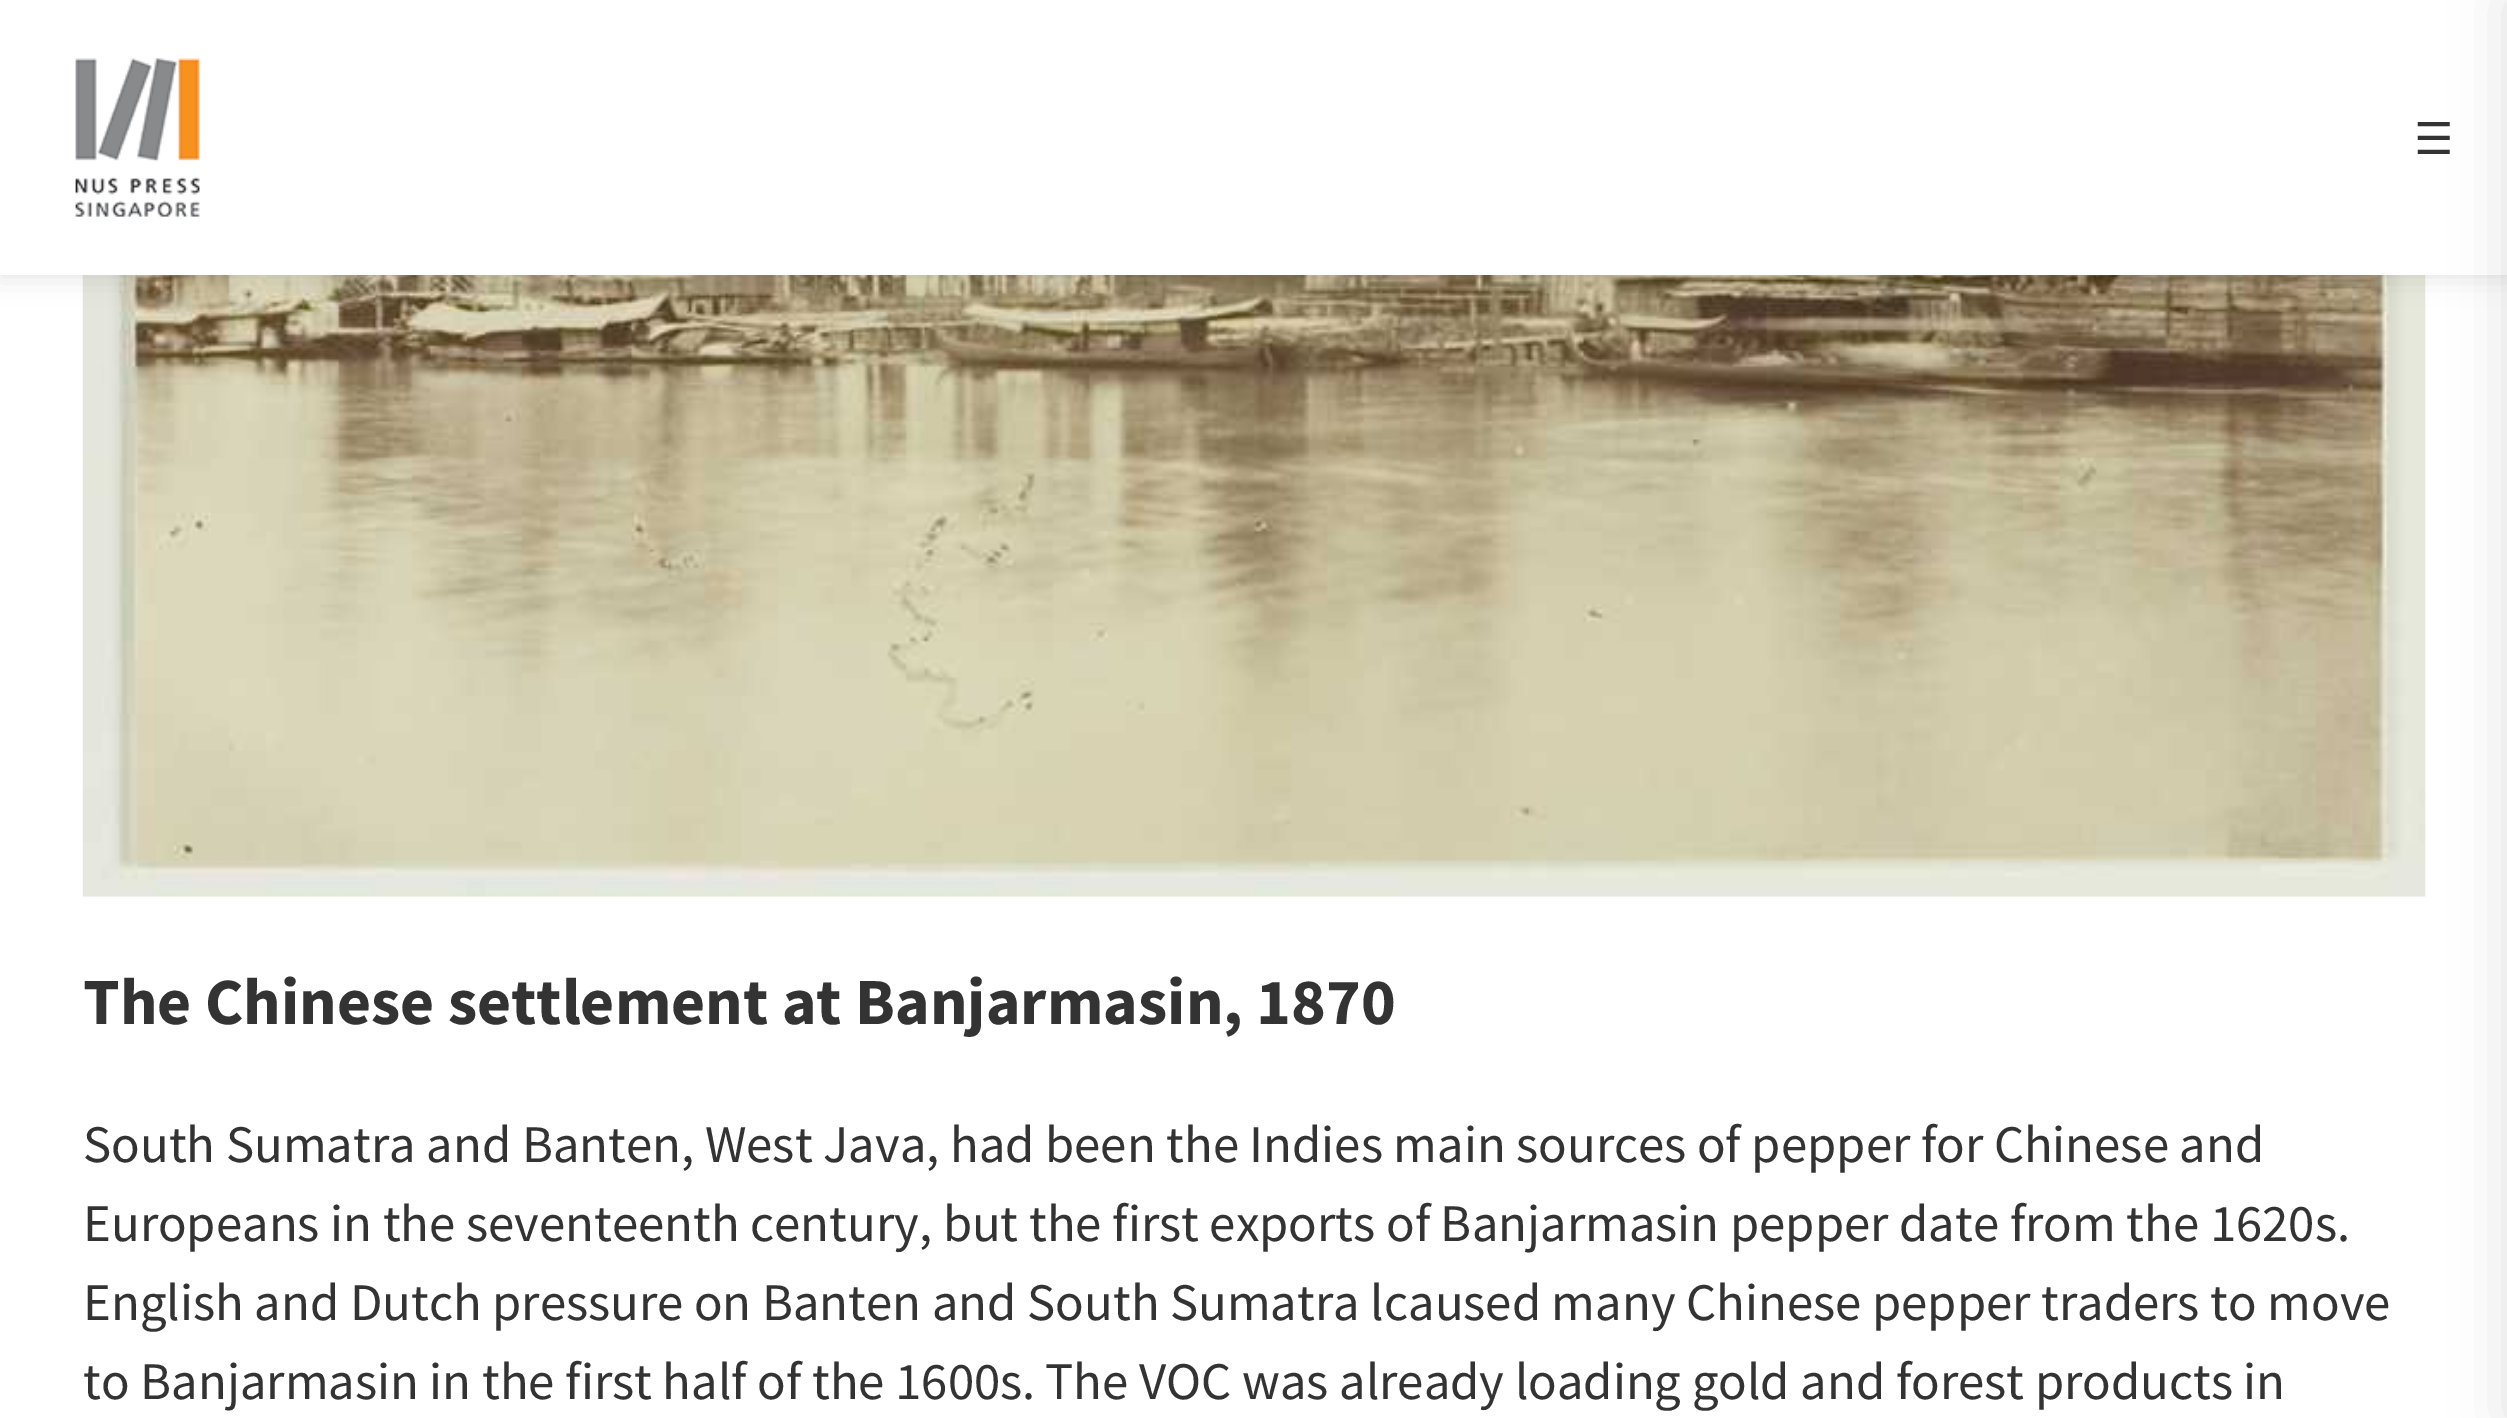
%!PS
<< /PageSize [2507 1418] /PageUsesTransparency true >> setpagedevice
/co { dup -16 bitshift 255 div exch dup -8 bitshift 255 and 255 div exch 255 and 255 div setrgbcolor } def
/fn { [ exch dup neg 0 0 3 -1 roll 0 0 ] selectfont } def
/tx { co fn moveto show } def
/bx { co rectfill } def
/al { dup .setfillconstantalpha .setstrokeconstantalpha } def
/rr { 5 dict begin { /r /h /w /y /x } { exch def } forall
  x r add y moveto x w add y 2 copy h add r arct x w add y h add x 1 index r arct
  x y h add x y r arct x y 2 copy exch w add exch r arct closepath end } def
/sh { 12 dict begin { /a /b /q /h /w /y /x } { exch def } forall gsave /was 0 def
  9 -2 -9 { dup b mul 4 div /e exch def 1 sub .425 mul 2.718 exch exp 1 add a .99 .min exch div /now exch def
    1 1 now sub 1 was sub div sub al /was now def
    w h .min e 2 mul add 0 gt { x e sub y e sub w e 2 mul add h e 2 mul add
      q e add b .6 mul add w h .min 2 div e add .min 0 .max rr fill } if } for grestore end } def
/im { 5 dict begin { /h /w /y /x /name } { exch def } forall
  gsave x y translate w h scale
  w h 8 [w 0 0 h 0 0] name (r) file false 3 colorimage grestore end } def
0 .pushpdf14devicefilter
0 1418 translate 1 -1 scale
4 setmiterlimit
0 0 2507 1418 16#FFFFFF bx
(media/2.raw) 82 275 2344 622 im
16#000000 co
0 0 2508 275 0 14 .12 sh
0 0 2507 275 16#FFFFFF bx
(media/1.raw) 75 58 125 159 im
16#000000 co
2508 0 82 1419 0 27.5 .12 sh
(☰) 2414 154 /DejaVuSans-Regular 44 16#333333 tx
(The Chinese settlement at Banjarmasin, 1870) 83 1024 /SourceSansPro-Bold 66 16#333333 tx
(South Sumatra and Banten, West Java, had been the Indies main sources of pepper for Chinese and) 83 1162 /SourceSansPro-Regular 52.8 16#333333 tx
(Europeans in the seventeenth century, but the first exports of Banjarmasin pepper date from the 1620s.) 83 1241 /SourceSansPro-Regular 52.8 16#333333 tx
(English and Dutch pressure on Banten and South Sumatra lcaused many Chinese pepper traders to move) 83 1320 /SourceSansPro-Regular 52.8 16#333333 tx
(to Banjarmasin in the first half of the 1600s.) 83 1399 /SourceSansPro-Regular 52.8 16#333333 tx
(The VOC was already loading gold and forest products in) 1045 1399 /SourceSansPro-Regular 52.8 16#333333 tx
.poppdf14devicefilter showpage
